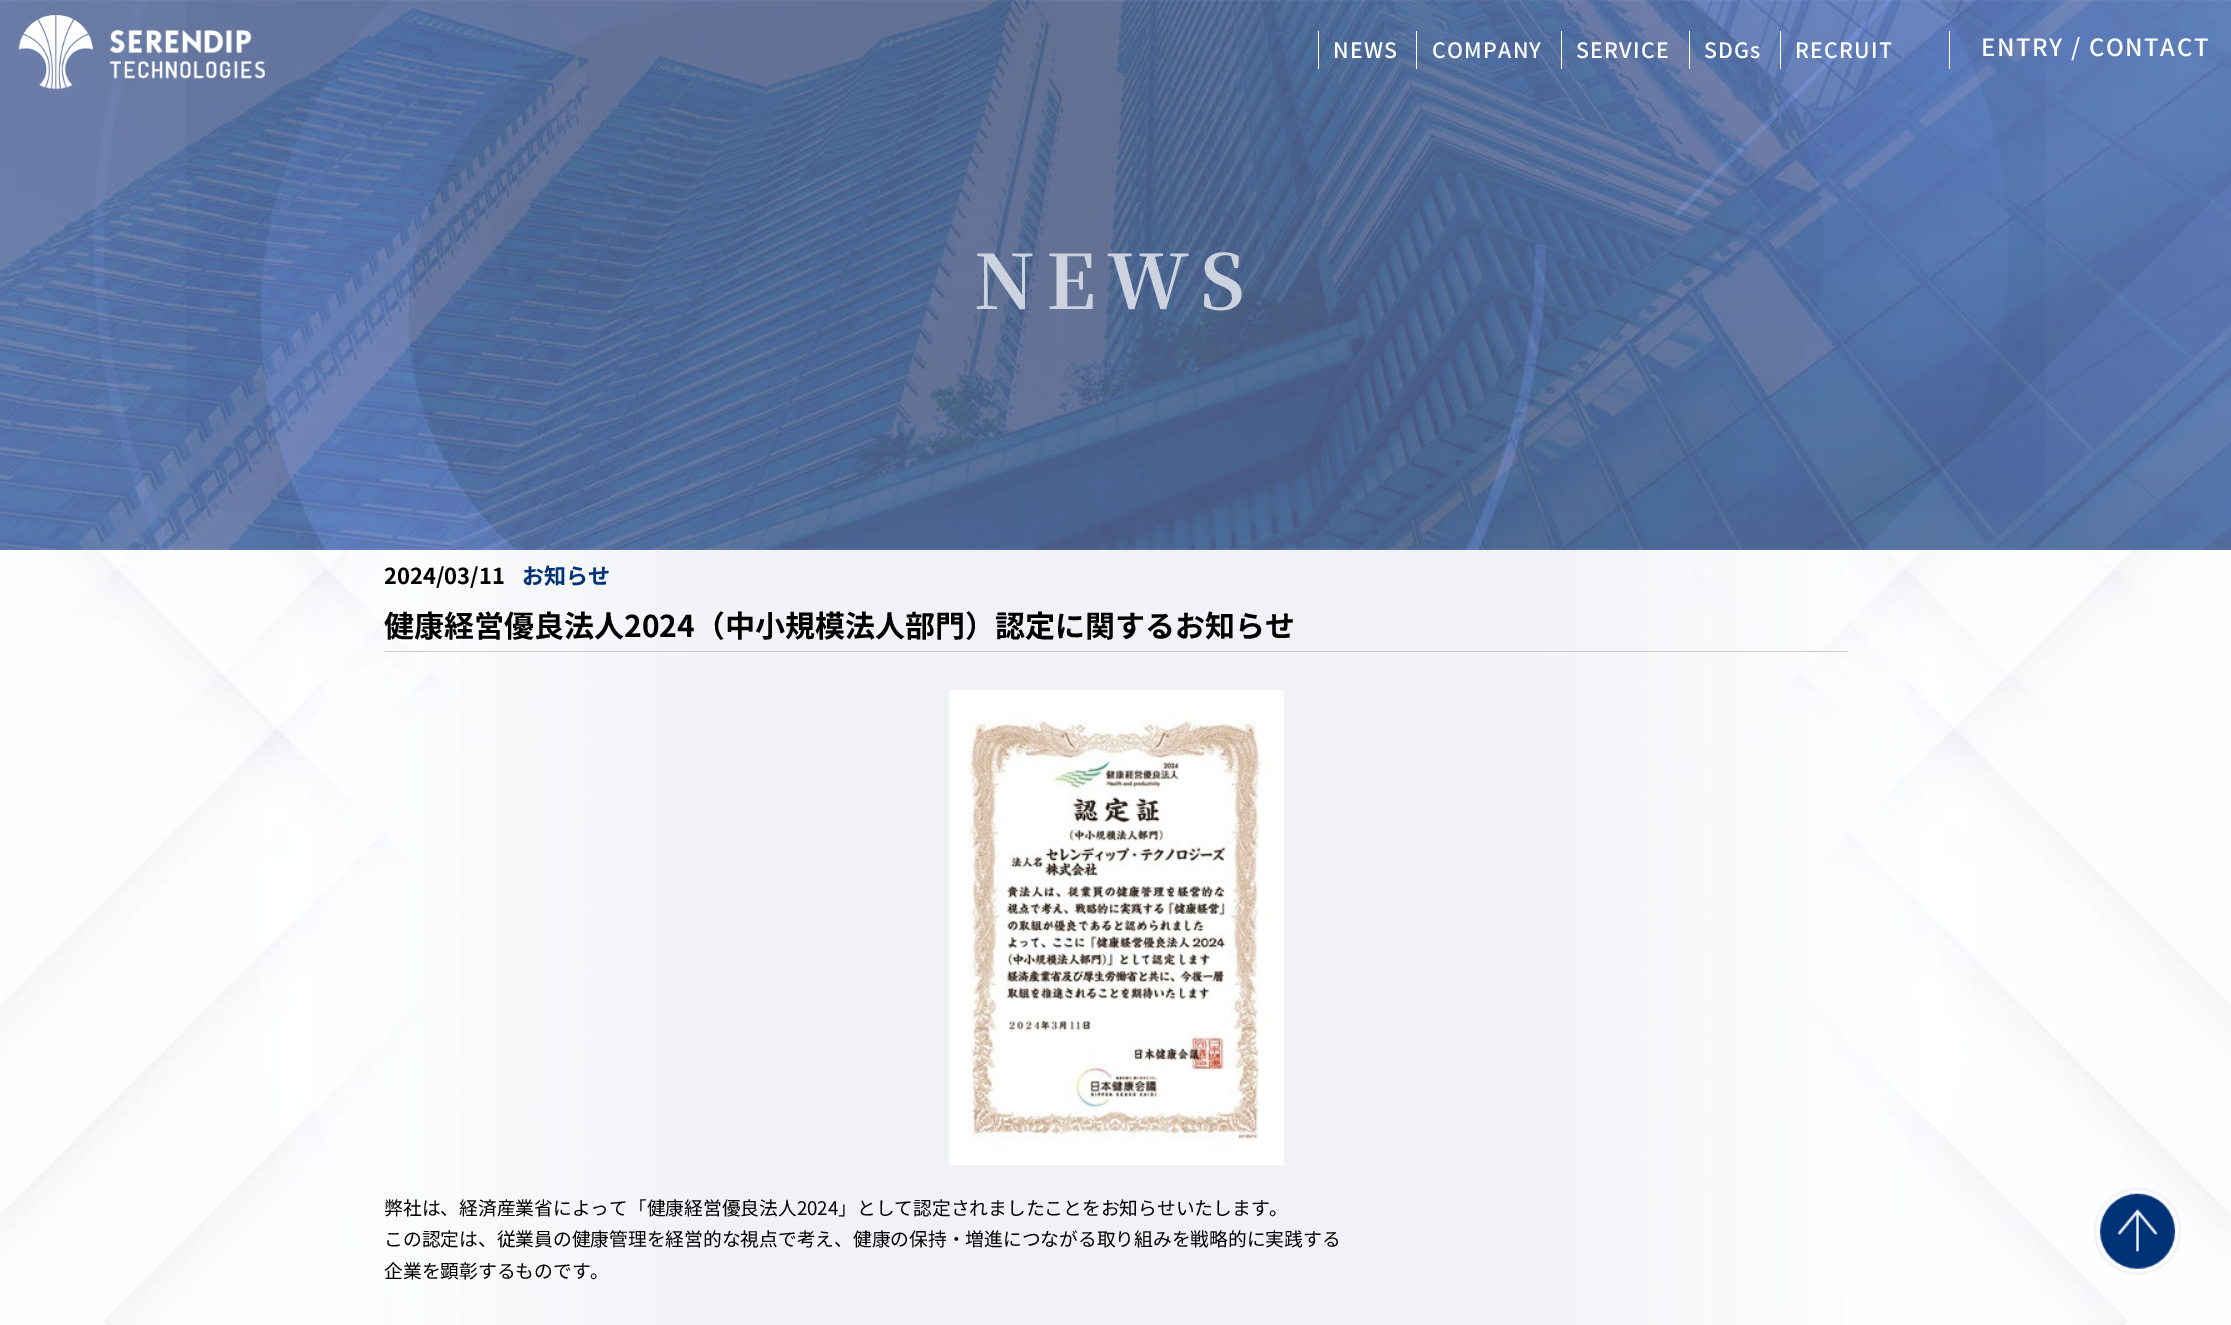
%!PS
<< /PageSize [2231 1325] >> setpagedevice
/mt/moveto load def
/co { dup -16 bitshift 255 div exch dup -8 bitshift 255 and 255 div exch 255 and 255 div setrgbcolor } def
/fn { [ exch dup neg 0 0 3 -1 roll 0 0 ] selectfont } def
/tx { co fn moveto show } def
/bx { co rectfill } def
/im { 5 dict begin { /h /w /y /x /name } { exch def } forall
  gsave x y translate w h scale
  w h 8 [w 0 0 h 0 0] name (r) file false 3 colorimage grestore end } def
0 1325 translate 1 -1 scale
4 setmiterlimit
0 0 2231 1325 16#FFFFFF bx
(media/1.raw) 0 0 2231 1325 im
(media/3.raw) 0 0 2231 550 im
(media/2.raw) 18 15 247 74 im
1318 31 1 38 16#FFFFFF bx
1416 31 1 38 16#FFFFFF bx
1561 31 1 38 16#FFFFFF bx
1689 31 1 38 16#FFFFFF bx
1780 31 1 38 16#FFFFFF bx
1949 31 1 38 16#FFFFFF bx
385 651 1463 1 16#CCCCCC bx
(media/4.raw) 949 690 335 475 im
(media/5.raw) 2094 1187 87 88 im
/NotoSansJP-Medium 21.25 fn
16#FFFFFF co
1333 58 mt 1.25 0 (NEWS) ashow
1432 58 mt 1.25 0 (COMPANY) ashow
1576 58 mt 1.25 0 (SERVICE) ashow
1704 58 mt 1.25 0 (SDGs) ashow
1795 58 mt 1.25 0 (RECRUIT) ashow
/NotoSansJP-Medium 23.75 fn
1981 56 mt 1.6 0 (ENTRY / CONTACT) ashow
/NotoSerifJP-Bold 75 fn
16#CCD2DE co
974 309 mt 11 0 (NEWS) ashow
(2024/03/11) 384 584 /NotoSansJP-Bold 22 16#000000 tx
(お知らせ) 522 584 /NotoSansJP-Bold 22 16#003278 tx
(健康経営優良法人2024（中小規模法人部門）認定に関するお知らせ) 384 637 /NotoSansJP-Bold 30 16#000000 tx
(弊社は、経済産業省によって「健康経営優良法人2024」として認定されましたことをお知らせいたします。) 384 1215 /NotoSansJP-Regular 18.75 16#000000 tx
(この認定は、従業員の健康管理を経営的な視点で考え、健康の保持・増進につながる取り組みを戦略的に実践する) 384 1246 /NotoSansJP-Regular 18.75 16#000000 tx
(企業を顕彰するものです。) 384 1278 /NotoSansJP-Regular 18.75 16#000000 tx
showpage
